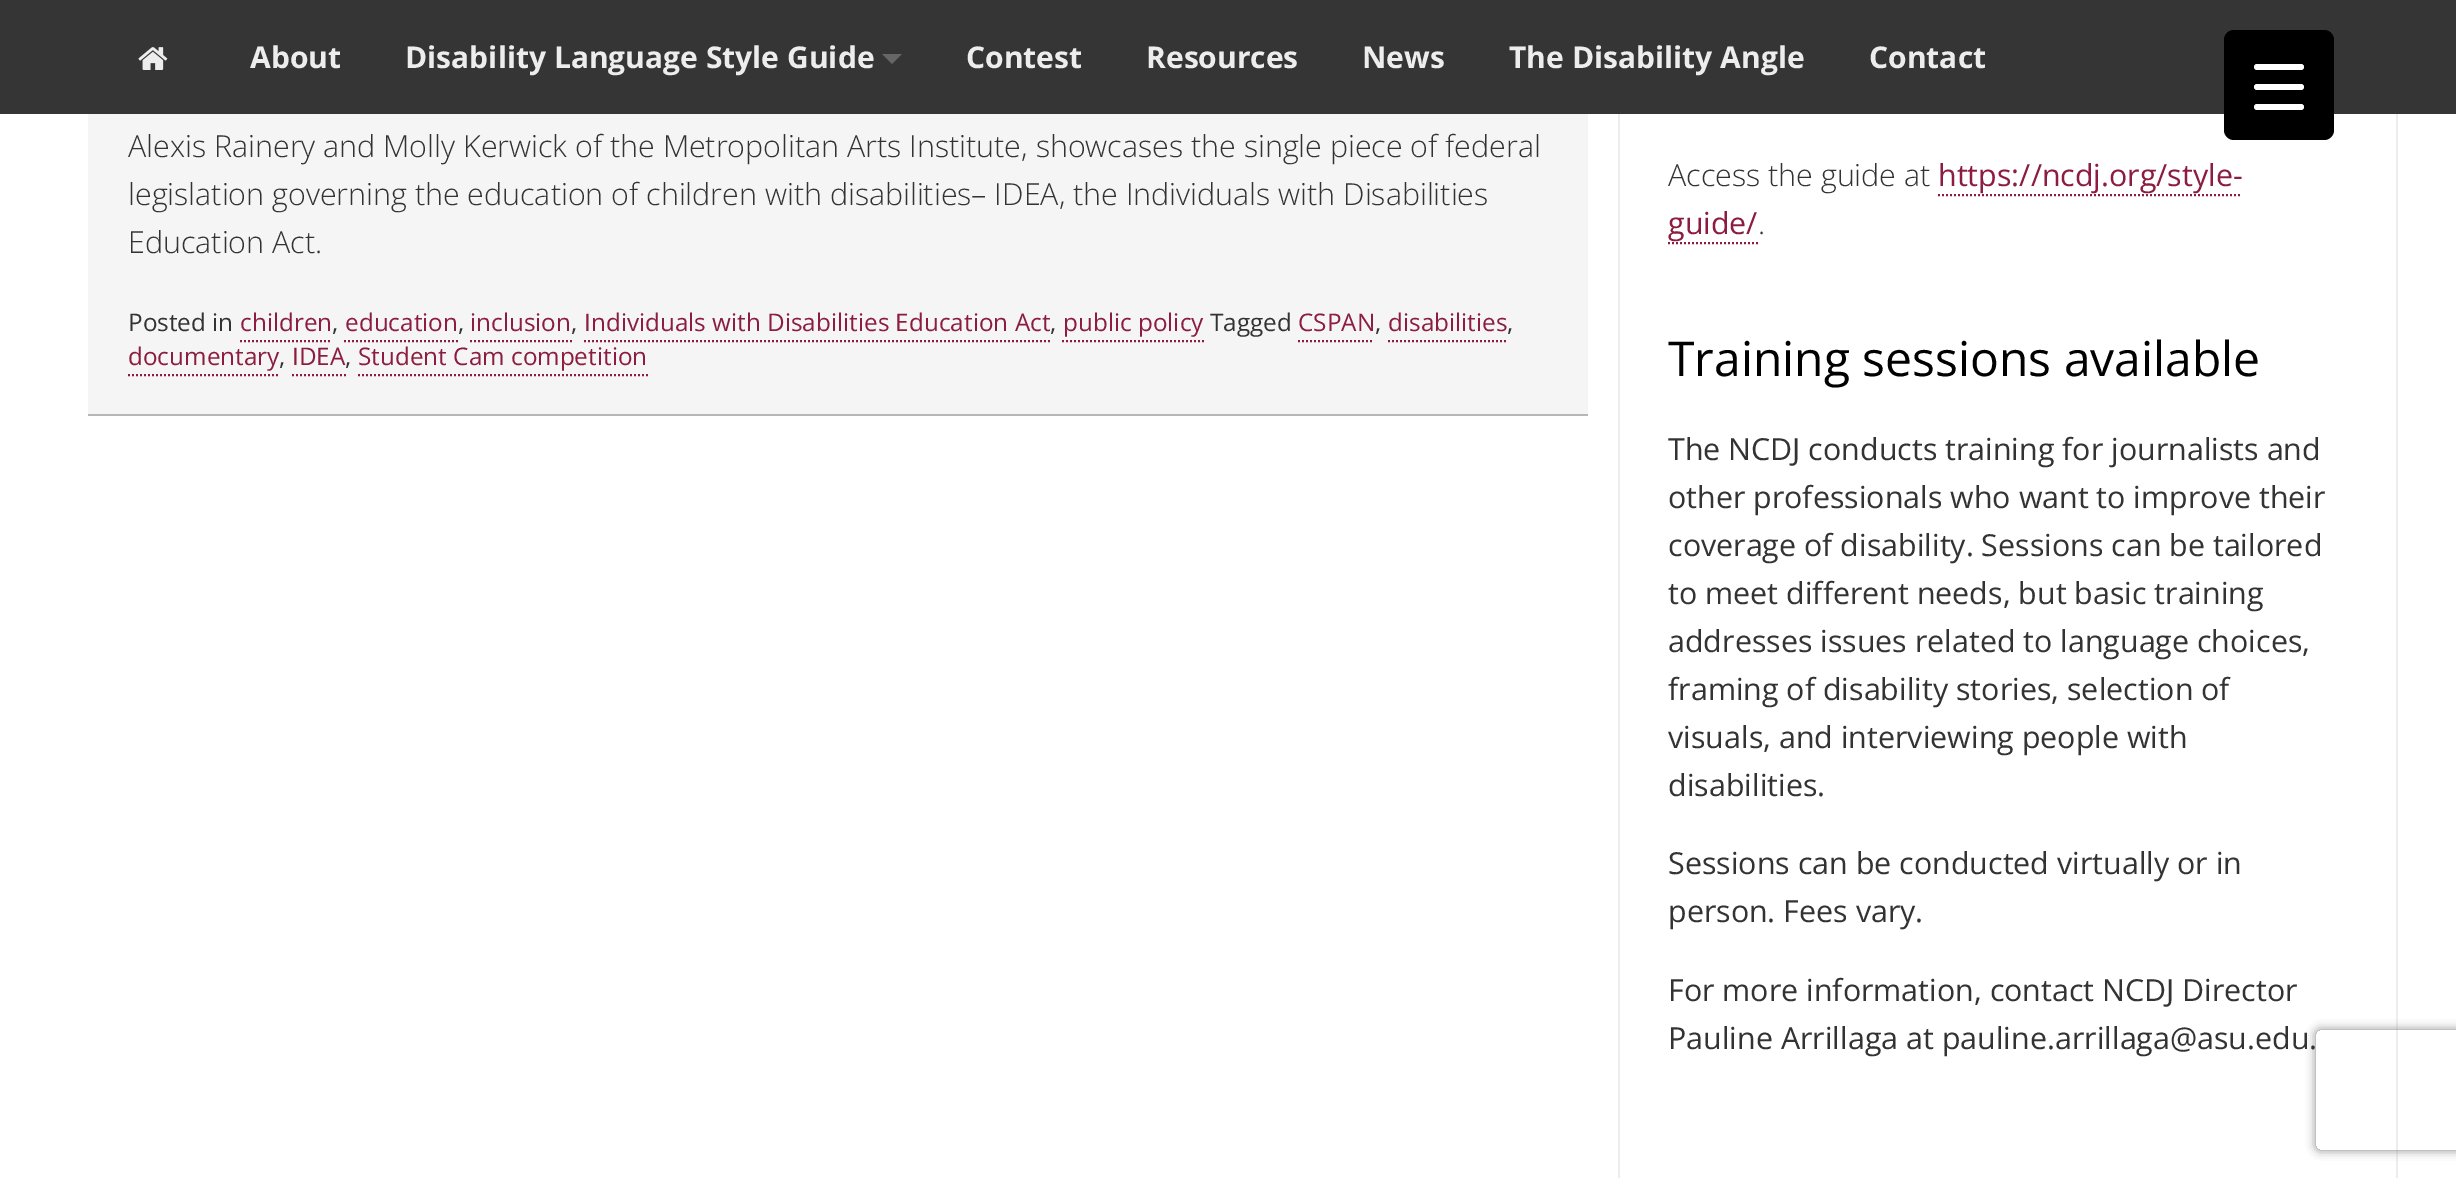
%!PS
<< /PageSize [2456 1178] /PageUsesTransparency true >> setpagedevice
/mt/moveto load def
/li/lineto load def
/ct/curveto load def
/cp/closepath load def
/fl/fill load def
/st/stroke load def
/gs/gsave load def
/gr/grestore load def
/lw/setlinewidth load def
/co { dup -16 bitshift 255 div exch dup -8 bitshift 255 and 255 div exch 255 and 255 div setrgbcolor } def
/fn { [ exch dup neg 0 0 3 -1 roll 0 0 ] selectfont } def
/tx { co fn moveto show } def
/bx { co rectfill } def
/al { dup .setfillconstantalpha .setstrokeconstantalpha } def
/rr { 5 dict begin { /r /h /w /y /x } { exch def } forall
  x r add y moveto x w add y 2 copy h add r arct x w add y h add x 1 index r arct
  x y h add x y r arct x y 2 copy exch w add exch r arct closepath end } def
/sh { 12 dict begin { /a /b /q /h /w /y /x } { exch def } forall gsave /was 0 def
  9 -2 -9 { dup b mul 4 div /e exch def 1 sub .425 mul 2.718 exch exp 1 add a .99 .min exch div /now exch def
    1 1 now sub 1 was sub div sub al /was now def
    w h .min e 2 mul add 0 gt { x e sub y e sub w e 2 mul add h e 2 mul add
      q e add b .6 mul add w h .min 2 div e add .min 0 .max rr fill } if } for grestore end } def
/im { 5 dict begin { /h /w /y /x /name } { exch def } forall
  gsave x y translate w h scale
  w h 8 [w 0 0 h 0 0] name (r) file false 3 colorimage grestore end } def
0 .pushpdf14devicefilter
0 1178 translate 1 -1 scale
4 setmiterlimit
0 0 2456 1178 16#FFFFFF bx
0 0 2456 114 16#353535 bx
(media/1.raw) 138 47 30 23 im
16#666666 co
882 54 mt 902 54 li 892 64 li cp fl
16#000000 co
2224 30 110 110 10 rr fl
16#FFFFFF co
2254 84 50 6 3 rr fl
2254 64 50 6 3 rr fl
2254 104 50 6 3 rr fl
88 114 1500 300 16#F5F5F5 bx
88 414 1500 2 16#B7B7B7 bx
16#8C1D40 co
2 lw
[2 2] 0 setdash
240 341 mt 332 341 li st
344 341 mt 458 341 li st
470 341 mt 572 341 li st
584 341 mt 1050 341 li st
1062 341 mt 1204 341 li st
1298 341 mt 1374 341 li st
1388 341 mt 1508 341 li st
128 375 mt 280 375 li st
292 375 mt 346 375 li st
358 375 mt 648 375 li st
2396 114 2 1064 16#EDEDED bx
1618 114 2 1064 16#EDEDED bx
16#8C1D40 co
1938 195 mt 2242 195 li st
1668 243 mt 1758 243 li st
gs
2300 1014 mt 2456 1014 li 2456 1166 li 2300 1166 li cp 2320 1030 mt 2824 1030 li 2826 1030 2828 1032 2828 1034 ct 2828 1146 li 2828 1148 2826 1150 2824 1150 ct 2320 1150 li 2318 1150 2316 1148 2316 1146 ct 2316 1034 li 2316 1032 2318 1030 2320 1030 ct cp eoclip newpath
16#808080 co
2316 1030 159 120 4 5 1 sh
gr
(About) 250 68 /OpenSans-Bold 30 16#EDEDED tx
(Disability Language Style Guide) 405 68 /OpenSans-Bold 30 16#EDEDED tx
(Contest) 966 68 /OpenSans-Bold 30 16#EDEDED tx
(Resources) 1146 68 /OpenSans-Bold 30 16#EDEDED tx
(News) 1362 68 /OpenSans-Bold 30 16#EDEDED tx
(The Disability Angle) 1509 68 /OpenSans-Bold 30 16#EDEDED tx
(Contact) 1869 68 /OpenSans-Bold 30 16#EDEDED tx
(Alexis Rainery and Molly Kerwick of the Metropolitan Arts Institute, showcases the single piece of federal) 128 157 /OpenSans-Light 30.4 16#333333 tx
(legislation governing the education of children with disabilities– IDEA, the Individuals with Disabilities) 128 205 /OpenSans-Light 30.4 16#333333 tx
(Education Act.) 128 253 /OpenSans-Light 30.4 16#333333 tx
(Posted in) 128 331 /OpenSans-Regular 24.3 16#333333 tx
(children) 240 331 /OpenSans-Regular 24.3 16#8C1D40 tx
(,) 332 331 /OpenSans-Regular 24.3 16#333333 tx
(education) 345 331 /OpenSans-Regular 24.3 16#8C1D40 tx
(,) 458 331 /OpenSans-Regular 24.3 16#333333 tx
(inclusion) 470 331 /OpenSans-Regular 24.3 16#8C1D40 tx
(,) 571 331 /OpenSans-Regular 24.3 16#333333 tx
(Individuals with Disabilities Education Act) 584 331 /OpenSans-Regular 24.3 16#8C1D40 tx
(,) 1050 331 /OpenSans-Regular 24.3 16#333333 tx
(public policy) 1063 331 /OpenSans-Regular 24.3 16#8C1D40 tx
(Tagged) 1210 331 /OpenSans-Regular 24.3 16#333333 tx
(CSPAN) 1298 331 /OpenSans-Regular 24.3 16#8C1D40 tx
(,) 1375 331 /OpenSans-Regular 24.3 16#333333 tx
(disabilities) 1388 331 /OpenSans-Regular 24.3 16#8C1D40 tx
(,) 1507 331 /OpenSans-Regular 24.3 16#333333 tx
(documentary) 128 365 /OpenSans-Regular 24.3 16#8C1D40 tx
(,) 279 365 /OpenSans-Regular 24.3 16#333333 tx
(IDEA) 292 365 /OpenSans-Regular 24.3 16#8C1D40 tx
(,) 345 365 /OpenSans-Regular 24.3 16#333333 tx
(Student Cam competition) 358 365 /OpenSans-Regular 24.3 16#8C1D40 tx
(Access the guide at) 1668 186 /OpenSans-Light 30.4 16#333333 tx
(https://ncdj.org/style-) 1938 186 /OpenSans-Regular 30.4 16#8C1D40 tx
(guide/) 1668 234 /OpenSans-Regular 30.4 16#8C1D40 tx
(.) 1758 234 /OpenSans-Light 30.4 16#333333 tx
(Training sessions available) 1668 376 /OpenSans-Regular 48 16#000000 tx
(The NCDJ conducts training for journalists and) 1668 460 /OpenSans-Regular 30.4 16#333333 tx
(other professionals who want to improve their) 1668 508 /OpenSans-Regular 30.4 16#333333 tx
(coverage of disability. Sessions can be tailored) 1668 556 /OpenSans-Regular 30.4 16#333333 tx
(to meet different needs, but basic training) 1668 604 /OpenSans-Regular 30.4 16#333333 tx
(addresses issues related to language choices,) 1668 652 /OpenSans-Regular 30.4 16#333333 tx
(framing of disability stories, selection of) 1668 700 /OpenSans-Regular 30.4 16#333333 tx
(visuals, and interviewing people with) 1668 748 /OpenSans-Regular 30.4 16#333333 tx
(disabilities.) 1668 796 /OpenSans-Regular 30.4 16#333333 tx
(Sessions can be conducted virtually or in) 1668 874 /OpenSans-Regular 30.4 16#333333 tx
(person. Fees vary.) 1668 922 /OpenSans-Regular 30.4 16#333333 tx
(For more information, contact NCDJ Director) 1668 1001 /OpenSans-Regular 30.4 16#333333 tx
(Pauline Arrillaga at pauline.arrillaga@asu.edu.) 1668 1049 /OpenSans-Regular 30.4 16#333333 tx
.poppdf14devicefilter showpage
